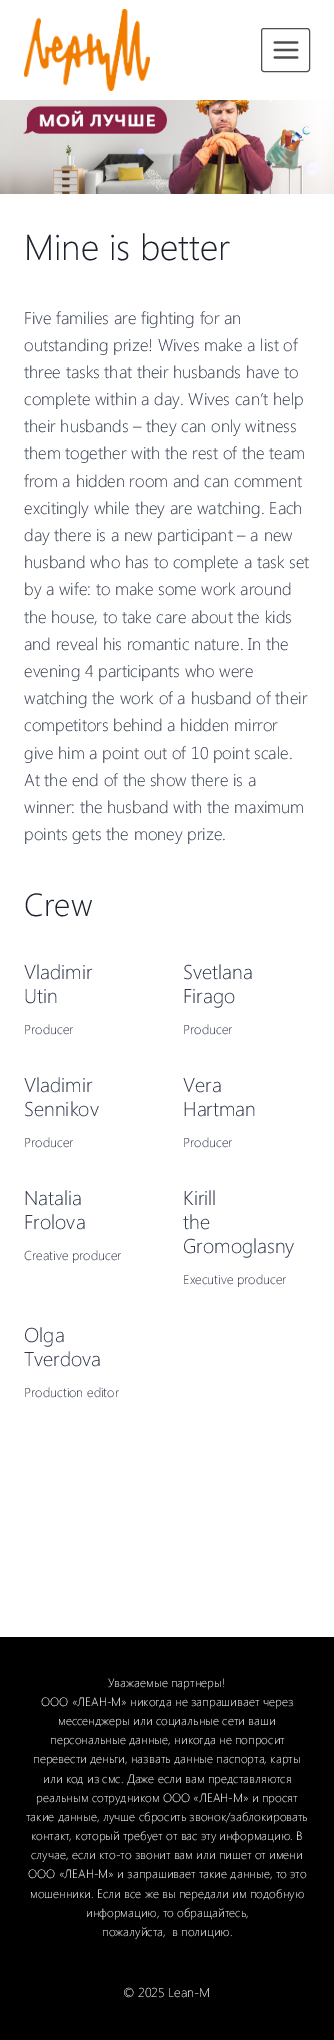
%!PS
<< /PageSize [334 2040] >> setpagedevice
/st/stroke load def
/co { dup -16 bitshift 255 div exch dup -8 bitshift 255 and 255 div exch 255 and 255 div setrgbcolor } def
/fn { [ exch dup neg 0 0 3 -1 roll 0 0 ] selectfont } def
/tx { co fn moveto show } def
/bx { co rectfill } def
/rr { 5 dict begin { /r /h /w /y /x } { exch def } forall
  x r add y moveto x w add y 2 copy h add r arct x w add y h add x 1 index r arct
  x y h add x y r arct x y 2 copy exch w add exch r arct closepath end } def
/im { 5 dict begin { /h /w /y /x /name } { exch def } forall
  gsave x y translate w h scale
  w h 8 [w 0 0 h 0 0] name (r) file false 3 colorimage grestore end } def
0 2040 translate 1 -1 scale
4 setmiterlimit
0 0 334 2040 16#FFFFFF bx
(media/1.raw) 24 9 126 82 im
16#4D4D4D co
261.5 28.5 48 43 2.5 rr st
(media/2.raw) 273 41 26 18 im
(media/3.raw) 0 100 334 94 im
0 1637 334 403 16#000000 bx
(Mine is better) 24 260 /SegoeUI-Light 36 16#1A202C tx
(Five families are fighting for an) 24 324 /SegoeUI-Light 17 16#2D3748 tx
(outstanding prize! Wives make a list of) 24 351 /SegoeUI-Light 17 16#2D3748 tx
(three tasks that their husbands have to) 24 378 /SegoeUI-Light 17 16#2D3748 tx
(complete within a day. Wives can’t help) 24 405 /SegoeUI-Light 17 16#2D3748 tx
(their husbands – they can only witness) 24 432 /SegoeUI-Light 17 16#2D3748 tx
(them together with the rest of the team) 24 459 /SegoeUI-Light 17 16#2D3748 tx
(from a hidden room and can comment) 24 487 /SegoeUI-Light 17 16#2D3748 tx
(excitingly while they are watching. Each) 24 514 /SegoeUI-Light 17 16#2D3748 tx
(day there is a new participant – a new) 24 541 /SegoeUI-Light 17 16#2D3748 tx
(husband who has to complete a task set) 24 568 /SegoeUI-Light 17 16#2D3748 tx
(by a wife: to make some work around) 24 595 /SegoeUI-Light 17 16#2D3748 tx
(the house, to take care about the kids) 24 623 /SegoeUI-Light 17 16#2D3748 tx
(and reveal his romantic nature. In the) 24 650 /SegoeUI-Light 17 16#2D3748 tx
(evening 4 participants who were) 24 677 /SegoeUI-Light 17 16#2D3748 tx
(watching the work of a husband of their) 24 704 /SegoeUI-Light 17 16#2D3748 tx
(competitors behind a hidden mirror) 24 731 /SegoeUI-Light 17 16#2D3748 tx
(give him a point out of 10 point scale.) 24 759 /SegoeUI-Light 17 16#2D3748 tx
(At the end of the show there is a) 24 786 /SegoeUI-Light 17 16#2D3748 tx
(winner: the husband with the maximum) 24 813 /SegoeUI-Light 17 16#2D3748 tx
(points gets the money prize.) 24 840 /SegoeUI-Light 17 16#2D3748 tx
(Crew) 24 916 /SegoeUI-Light 32 16#1A202C tx
(Vladimir) 24 979 /SegoeUI-Light 20 16#2D3748 tx
(Utin) 24 1003 /SegoeUI-Light 20 16#2D3748 tx
(Producer) 24 1034 /SegoeUI-Light 13 16#2D3748 tx
(Svetlana) 183 979 /SegoeUI-Light 20 16#2D3748 tx
(Firago) 183 1003 /SegoeUI-Light 20 16#2D3748 tx
(Producer) 183 1034 /SegoeUI-Light 13 16#2D3748 tx
(Vladimir) 24 1092 /SegoeUI-Light 20 16#2D3748 tx
(Sennikov) 24 1116 /SegoeUI-Light 20 16#2D3748 tx
(Producer) 24 1147 /SegoeUI-Light 13 16#2D3748 tx
(Vera) 183 1092 /SegoeUI-Light 20 16#2D3748 tx
(Hartman) 183 1116 /SegoeUI-Light 20 16#2D3748 tx
(Producer) 183 1147 /SegoeUI-Light 13 16#2D3748 tx
(Natalia) 24 1205 /SegoeUI-Light 20 16#2D3748 tx
(Frolova) 24 1229 /SegoeUI-Light 20 16#2D3748 tx
(Creative producer) 24 1260 /SegoeUI-Light 13 16#2D3748 tx
(Kirill) 183 1205 /SegoeUI-Light 20 16#2D3748 tx
(the) 183 1229 /SegoeUI-Light 20 16#2D3748 tx
(Gromoglasny) 183 1253 /SegoeUI-Light 20 16#2D3748 tx
(Executive producer) 183 1284 /SegoeUI-Light 13 16#2D3748 tx
(Olga) 24 1342 /SegoeUI-Light 20 16#2D3748 tx
(Tverdova) 24 1366 /SegoeUI-Light 20 16#2D3748 tx
(Production editor) 24 1397 /SegoeUI-Light 13 16#2D3748 tx
(Уважаемые партнеры!) 108 1687 /SegoeUI-Light 12 16#FFFFFF tx
(ООО «ЛЕАН-М» никогда не запрашивает через) 41 1706 /SegoeUI-Light 12 16#FFFFFF tx
(мессенджеры или социальные сети ваши) 58 1725 /SegoeUI-Light 12 16#FFFFFF tx
(персональные данные, никогда не попросит) 50 1744 /SegoeUI-Light 12 16#FFFFFF tx
(перевести деньги, назвать данные паспорта, карты) 33 1763 /SegoeUI-Light 12 16#FFFFFF tx
(или код из смс. Даже если вам представляются) 43 1783 /SegoeUI-Light 12 16#FFFFFF tx
(реальным сотрудником ООО «ЛЕАН-М» и просят) 36 1802 /SegoeUI-Light 12 16#FFFFFF tx
(такие данные, лучше сбросить звонок/заблокировать) 26 1821 /SegoeUI-Light 12 16#FFFFFF tx
(контакт, который требует от вас эту информацию. В) 31 1840 /SegoeUI-Light 12 16#FFFFFF tx
(случае, если кто-то звонит вам или пишет от имени) 31 1859 /SegoeUI-Light 12 16#FFFFFF tx
(ООО «ЛЕАН-М» и запрашивает такие данные, то это) 28 1878 /SegoeUI-Light 12 16#FFFFFF tx
(мошенники. Если все же вы передали им подобную) 30 1898 /SegoeUI-Light 12 16#FFFFFF tx
(информацию, то обращайтесь,) 86 1917 /SegoeUI-Light 12 16#FFFFFF tx
(пожалуйста,  в полицию.) 102 1936 /SegoeUI-Light 12 16#FFFFFF tx
(© 2025 Lean-M) 123 1997 /SegoeUI-Light 13 16#FFFFFF tx
showpage
